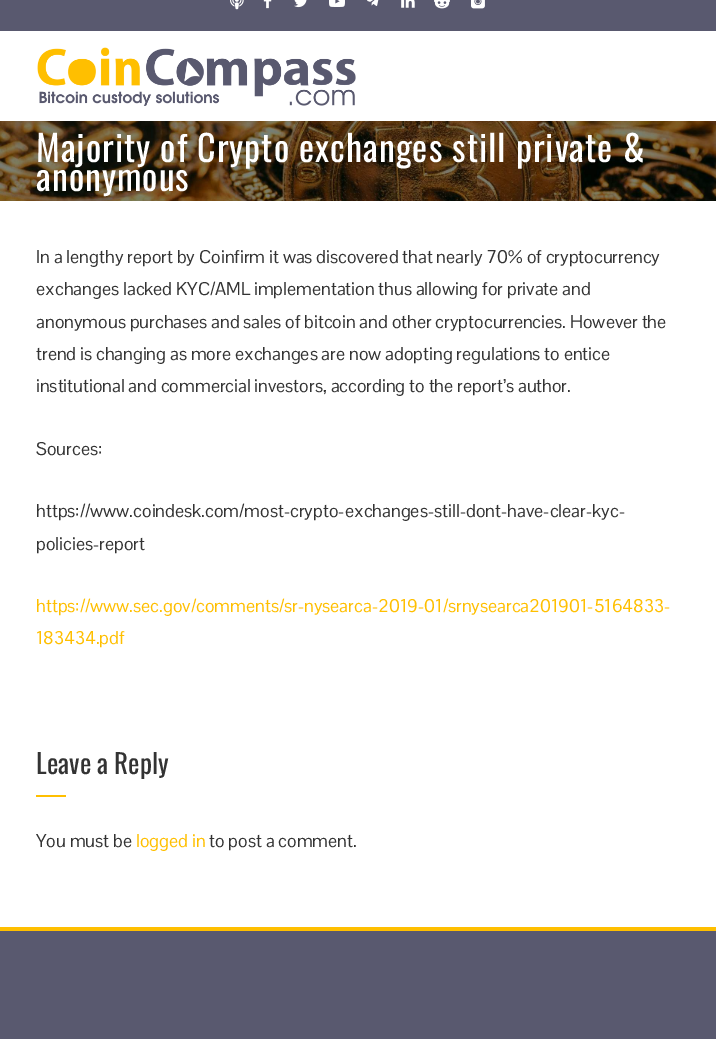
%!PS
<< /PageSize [716 1039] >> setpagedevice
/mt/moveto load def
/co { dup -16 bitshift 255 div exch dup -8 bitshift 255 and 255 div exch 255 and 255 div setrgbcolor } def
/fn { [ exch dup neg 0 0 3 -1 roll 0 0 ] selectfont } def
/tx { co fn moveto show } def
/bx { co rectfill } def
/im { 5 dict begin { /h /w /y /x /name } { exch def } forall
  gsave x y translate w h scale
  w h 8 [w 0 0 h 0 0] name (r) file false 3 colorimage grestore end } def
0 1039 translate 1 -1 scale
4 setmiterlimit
0 0 716 1039 16#FFFFFF bx
0 0 716 31 16#59596F bx
(media/1.raw) 230 0 14 10 im
(media/2.raw) 263 0 9 9 im
(media/3.raw) 294 0 13 8 im
(media/4.raw) 329 0 16 7 im
(media/5.raw) 367 0 12 6 im
(media/6.raw) 401 0 14 8 im
(media/7.raw) 434 0 16 9 im
(media/8.raw) 471 0 14 9 im
(media/9.raw) 37 47 319 59 im
(media/10.raw) 0 121 716 80 im
36 795 30 2 16#FFBF00 bx
0 931 716 108 16#59596F bx
0 927 716 4 16#FFBF00 bx
/Oswald-Regular 36 fn
16#FFFFFF co
36 162 mt 1 0 (Majority of Crypto exchanges still private &) ashow
36 191 mt 1 0 (anonymous) ashow
(In a lengthy report by Coinfirm it was discovered that nearly 70% of cryptocurrency) 36 263 /PontanoSans-Regular 18 16#333333 tx
(exchanges lacked KYC/AML implementation thus allowing for private and) 36 295 /PontanoSans-Regular 18 16#333333 tx
(anonymous purchases and sales of bitcoin and other cryptocurrencies. However the) 36 328 /PontanoSans-Regular 18 16#333333 tx
(trend is changing as more exchanges are now adopting regulations to entice) 36 360 /PontanoSans-Regular 18 16#333333 tx
(institutional and commercial investors, according to the report’s author.) 36 392 /PontanoSans-Regular 18 16#333333 tx
(Sources:) 36 455 /PontanoSans-Regular 18 16#333333 tx
(https://www.coindesk.com/most-crypto-exchanges-still-dont-have-clear-kyc-) 36 517 /PontanoSans-Regular 18 16#333333 tx
(policies-report) 36 550 /PontanoSans-Regular 18 16#333333 tx
(https://www.sec.gov/comments/sr-nysearca-2019-01/srnysearca201901-5164833-) 36 612 /PontanoSans-Regular 18 16#FFBF00 tx
(183434.pdf) 36 644 /PontanoSans-Regular 18 16#FFBF00 tx
(Leave a Reply) 36 774 /Oswald-Regular 27 16#333333 tx
(You must be) 36 847 /PontanoSans-Regular 18 16#333333 tx
(logged in) 136 847 /PontanoSans-Regular 18 16#FFBF00 tx
(to post a comment.) 209 847 /PontanoSans-Regular 18 16#333333 tx
showpage
